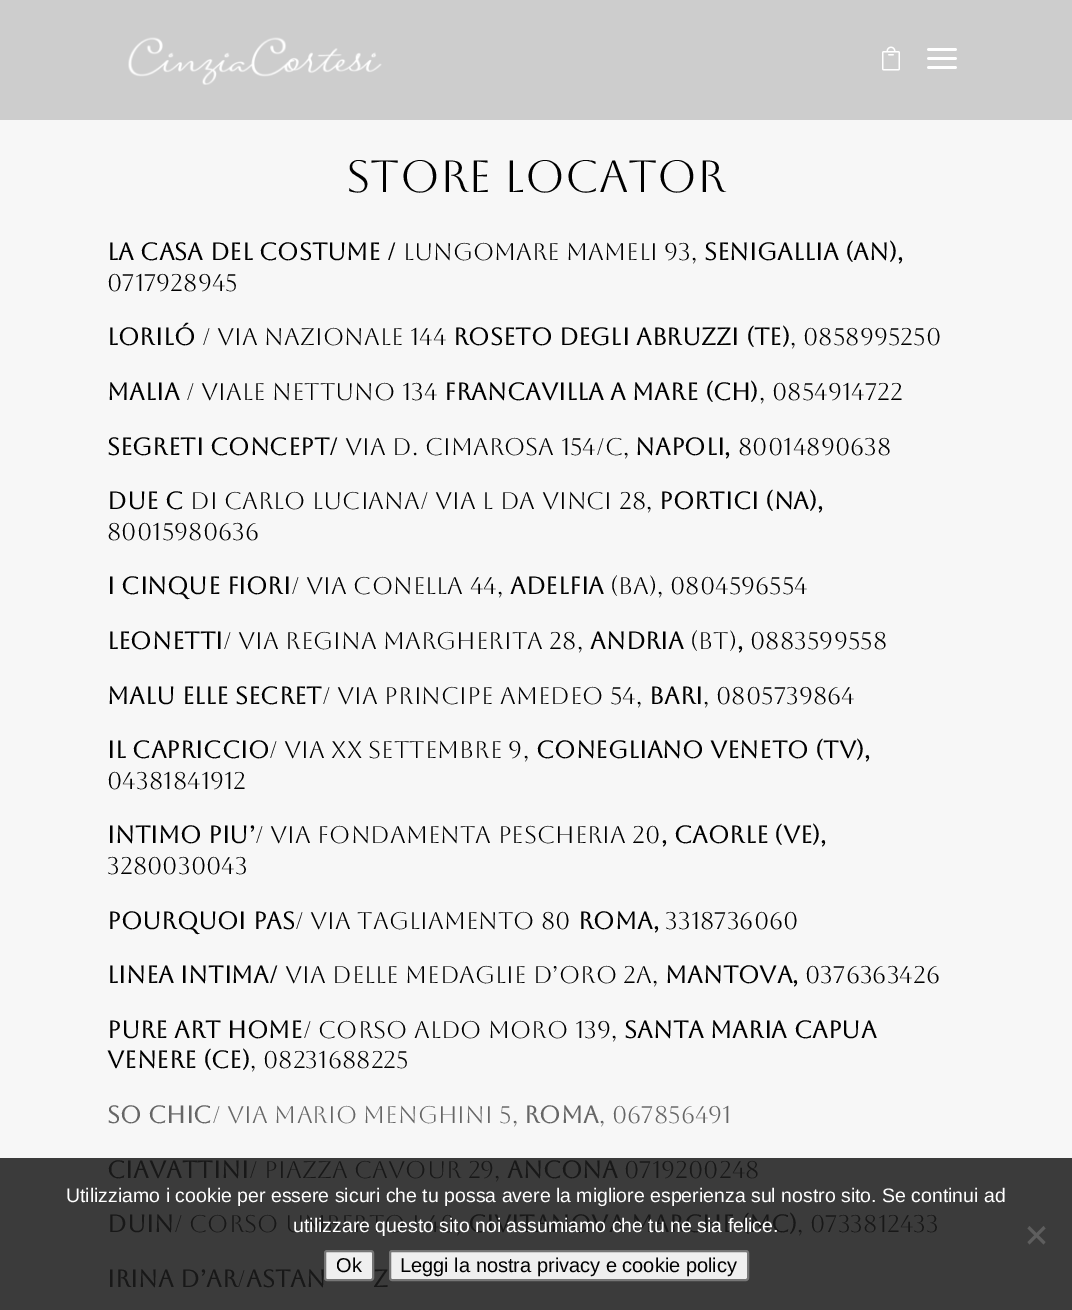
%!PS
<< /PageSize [1072 1310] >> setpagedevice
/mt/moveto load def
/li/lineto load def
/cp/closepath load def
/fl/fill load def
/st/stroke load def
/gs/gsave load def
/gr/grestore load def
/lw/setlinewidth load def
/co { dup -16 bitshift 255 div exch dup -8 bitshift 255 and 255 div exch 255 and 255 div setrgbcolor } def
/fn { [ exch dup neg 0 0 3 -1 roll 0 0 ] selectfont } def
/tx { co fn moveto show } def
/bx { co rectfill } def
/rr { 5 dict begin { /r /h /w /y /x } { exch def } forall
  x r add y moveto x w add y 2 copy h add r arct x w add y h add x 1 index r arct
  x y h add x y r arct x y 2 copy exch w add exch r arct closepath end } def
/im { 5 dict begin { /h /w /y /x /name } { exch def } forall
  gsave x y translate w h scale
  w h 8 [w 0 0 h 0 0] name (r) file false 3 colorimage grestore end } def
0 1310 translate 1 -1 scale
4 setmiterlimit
0 0 1072 1310 16#F7F7F7 bx
0 0 1072 120 16#CDCDCD bx
(media/1.raw) 128 37 254 48 im
(media/2.raw) 882 46 18 25 im
(media/3.raw) 927 48 30 21 im
0 1158 1072 152 16#3B3B3B bx
16#5E5E5E co
1043.5 1226 mt 1045.5 1228.5 li 1029.5 1244.5 li 1027.5 1242 li cp fl
1027.5 1228.5 mt 1029.5 1226 li 1045.5 1242 li 1043.5 1244.5 li cp fl
16#EFEFEF co
390 1251 358 29 2 rr gs fl gr
16#767676 co
2 lw
st
(STORE LOCATOR) 346 192 /Aboreto-Regular 45 16#000000 tx
(LA CASA DEL COSTUME /) 107 260 /Aboreto-Bold 24 16#000000 tx
(Lungomare Mameli 93,) 403 260 /Aboreto-Regular 24 16#000000 tx
(Senigallia \(AN\),) 704 260 /Aboreto-Bold 24 16#000000 tx
(0717928945) 107 291 /Aboreto-Regular 24 16#000000 tx
(LORILÓ) 107 345 /Aboreto-Bold 24 16#000000 tx
(/ Via Nazionale 144) 202 345 /Aboreto-Regular 24 16#000000 tx
(Roseto degli Abruzzi \(TE\)) 453 345 /Aboreto-Bold 24 16#000000 tx
(, 0858995250) 790 345 /Aboreto-Regular 24 16#000000 tx
(MALIA) 107 400 /Aboreto-Bold 24 16#000000 tx
(/ Viale Nettuno 134) 186 400 /Aboreto-Regular 24 16#000000 tx
(Francavilla a Mare \(CH\)) 444 400 /Aboreto-Bold 24 16#000000 tx
(, 0854914722) 759 400 /Aboreto-Regular 24 16#000000 tx
(SEGRETI CONCEPT/) 107 455 /Aboreto-Bold 24 16#000000 tx
(Via d. Cimarosa 154/c,) 345 455 /Aboreto-Regular 24 16#000000 tx
(Napoli,) 635 455 /Aboreto-Bold 24 16#000000 tx
(80014890638) 738 455 /Aboreto-Regular 24 16#000000 tx
(DUE C) 107 509 /Aboreto-Bold 24 16#000000 tx
(di Carlo Luciana/ Via L Da Vinci 28,) 190 509 /Aboreto-Regular 24 16#000000 tx
(Portici \(NA\),) 659 509 /Aboreto-Bold 24 16#000000 tx
(80015980636) 107 540 /Aboreto-Regular 24 16#000000 tx
(I CINQUE FIORI) 107 594 /Aboreto-Bold 24 16#000000 tx
(/ Via Conella 44,) 291 594 /Aboreto-Regular 24 16#000000 tx
(Adelfia) 510 594 /Aboreto-Bold 24 16#000000 tx
(\(BA\), 0804596554) 610 594 /Aboreto-Regular 24 16#000000 tx
(LEONETTI) 107 649 /Aboreto-Bold 24 16#000000 tx
(/ Via Regina Margherita 28,) 223 649 /Aboreto-Regular 24 16#000000 tx
(Andria) 590 649 /Aboreto-Bold 24 16#000000 tx
(\(BT\)) 690 649 /Aboreto-Regular 24 16#000000 tx
(,) 737 649 /Aboreto-Bold 24 16#000000 tx
(0883599558) 750 649 /Aboreto-Regular 24 16#000000 tx
(MALU ELLE SECRET) 107 704 /Aboreto-Bold 24 16#000000 tx
(/ Via Principe Amedeo 54,) 322 704 /Aboreto-Regular 24 16#000000 tx
(BARI) 649 704 /Aboreto-Bold 24 16#000000 tx
(, 0805739864) 703 704 /Aboreto-Regular 24 16#000000 tx
(IL CAPRICCIO) 107 758 /Aboreto-Bold 24 16#000000 tx
(/ via XX settembre 9,) 269 758 /Aboreto-Regular 24 16#000000 tx
(Conegliano Veneto \(TV\),) 536 758 /Aboreto-Bold 24 16#000000 tx
(04381841912) 107 789 /Aboreto-Regular 24 16#000000 tx
(INTIMO PIU’) 107 843 /Aboreto-Bold 24 16#000000 tx
(/ via Fondamenta Pescheria 20) 255 843 /Aboreto-Regular 24 16#000000 tx
(, Caorle \(VE\),) 661 843 /Aboreto-Bold 24 16#000000 tx
(3280030043) 107 874 /Aboreto-Regular 24 16#000000 tx
(POURQUOI PAS) 107 929 /Aboreto-Bold 24 16#000000 tx
(/ via Tagliamento 80) 295 929 /Aboreto-Regular 24 16#000000 tx
(Roma,) 578 929 /Aboreto-Bold 24 16#000000 tx
(3318736060) 665 929 /Aboreto-Regular 24 16#000000 tx
(LINEA INTIMA/) 107 983 /Aboreto-Bold 24 16#000000 tx
(via delle Medaglie d’Oro 2A,) 285 983 /Aboreto-Regular 24 16#000000 tx
(Mantova,) 665 983 /Aboreto-Bold 24 16#000000 tx
(0376363426) 805 983 /Aboreto-Regular 24 16#000000 tx
(PURE ART HOME) 107 1038 /Aboreto-Bold 24 16#000000 tx
(/ corso Aldo Moro 139,) 303 1038 /Aboreto-Regular 24 16#000000 tx
(Santa Maria Capua) 624 1038 /Aboreto-Bold 24 16#000000 tx
(Venere \(CE\)) 107 1068 /Aboreto-Bold 24 16#000000 tx
(, 08231688225) 250 1068 /Aboreto-Regular 24 16#000000 tx
(SO CHIC) 107 1123 /Aboreto-Bold 24 16#666666 tx
(/ via Mario Menghini 5,) 212 1123 /Aboreto-Regular 24 16#666666 tx
(ROMA) 524 1123 /Aboreto-Bold 24 16#666666 tx
(, 067856491) 599 1123 /Aboreto-Regular 24 16#666666 tx
(CIAVATTINI) 107 1178 /Aboreto-Bold 24 16#181818 tx
(/ piazza cavour 29,) 249 1178 /Aboreto-Regular 24 16#181818 tx
(ANCONA) 507 1178 /Aboreto-Bold 24 16#181818 tx
(0719200248) 624 1178 /Aboreto-Regular 24 16#181818 tx
(DUIN) 107 1232 /Aboreto-Bold 24 16#181818 tx
(/ corso Umberto I 40,) 174 1232 /Aboreto-Regular 24 16#181818 tx
(CIVITANOVA MARCHE \(MC\)) 468 1232 /Aboreto-Bold 24 16#181818 tx
(, 0733812433) 797 1232 /Aboreto-Regular 24 16#181818 tx
(IRINA D’AR) 107 1287 /Aboreto-Bold 24 16#181818 tx
(/) 237 1287 /Aboreto-Regular 24 16#181818 tx
(ASTAN) 246 1287 /Aboreto-Bold 24 16#181818 tx
(Z) 373 1287 /Aboreto-Bold 24 16#181818 tx
(Utilizziamo i cookie per essere sicuri che tu possa avere la migliore esperienza sul nostro sito. Se continui ad) 66 1202 /LiberationSans-Regular 19.5 16#FFFFFF tx
(utilizzare questo sito noi assumiamo che tu ne sia felice.) 293 1232 /LiberationSans-Regular 19.5 16#FFFFFF tx
16#EFEFEF co
325 1251 48 29 2 rr gs fl gr
16#767676 co
st
(Ok) 336 1272 /LiberationSans-Regular 20 16#000000 tx
(Leggi la nostra privacy e cookie policy) 400 1272 /LiberationSans-Regular 20 16#000000 tx
showpage
